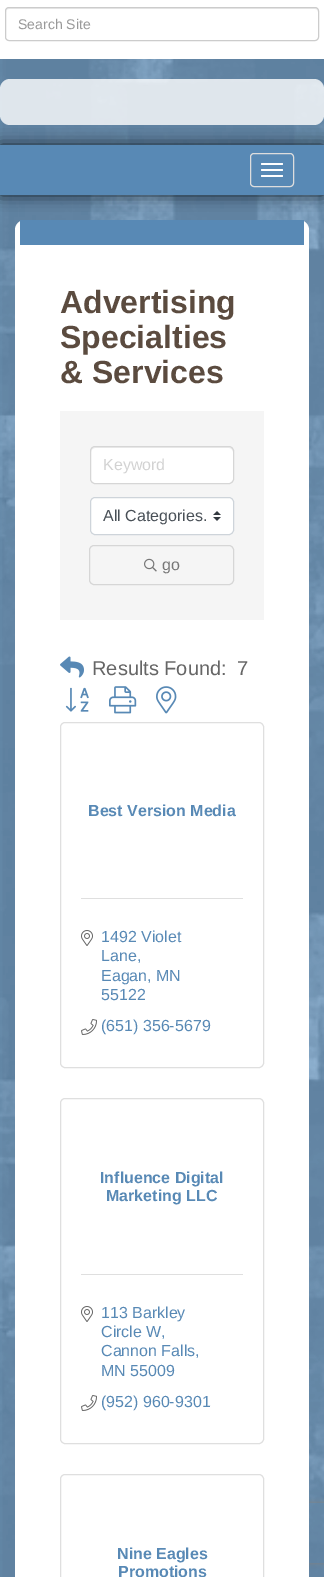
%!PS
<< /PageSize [324 1577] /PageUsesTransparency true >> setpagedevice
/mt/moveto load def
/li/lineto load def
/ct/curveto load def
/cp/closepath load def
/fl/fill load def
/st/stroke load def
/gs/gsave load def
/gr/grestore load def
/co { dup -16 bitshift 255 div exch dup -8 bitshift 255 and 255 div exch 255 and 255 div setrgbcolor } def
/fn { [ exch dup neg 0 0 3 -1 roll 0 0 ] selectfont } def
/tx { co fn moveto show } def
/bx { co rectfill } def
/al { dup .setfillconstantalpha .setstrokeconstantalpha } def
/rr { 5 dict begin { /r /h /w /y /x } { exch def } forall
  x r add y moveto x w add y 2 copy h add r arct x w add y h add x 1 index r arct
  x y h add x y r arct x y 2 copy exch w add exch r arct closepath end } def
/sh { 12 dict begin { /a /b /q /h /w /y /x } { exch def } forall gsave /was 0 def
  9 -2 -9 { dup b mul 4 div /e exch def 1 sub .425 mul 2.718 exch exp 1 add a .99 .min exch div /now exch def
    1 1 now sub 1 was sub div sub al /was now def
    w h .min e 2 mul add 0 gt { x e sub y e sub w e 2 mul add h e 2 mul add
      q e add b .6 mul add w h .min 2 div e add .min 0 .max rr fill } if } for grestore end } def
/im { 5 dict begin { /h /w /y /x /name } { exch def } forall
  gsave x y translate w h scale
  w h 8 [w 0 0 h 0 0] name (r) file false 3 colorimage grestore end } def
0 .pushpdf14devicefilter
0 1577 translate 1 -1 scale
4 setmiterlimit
0 0 324 1577 16#88BDEC bx
(media/1.raw) 0 59 324 1518 im
0 0 324 59 16#FFFFFF bx
16#ECECEC co
9 9 mt 315 9 li 317 9 318 10 318 12 ct 317 9 li 316 8 li 9 8 li 7 8 6 10 6 12 ct 6 10 7 9 9 9 ct cp fl
16#CCCCCC co
5.5 7.5 313 33 3.5 rr st
16#13212B co
0 145 324 50 0 7.5 1 sh
0.8 al
16#FFFFFF co
0 79 324 46 10 rr fl
1 al
0 145 324 50 16#5889B5 bx
16#DDDDDD co
250.5 153.5 43 33 3.5 rr st
16#FFFFFF co
261 163 22 2 1 rr fl
261 169 22 2 1 rr fl
261 175 22 2 1 rr fl
gs
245 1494 mt 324 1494 li 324 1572 li 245 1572 li cp 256 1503 mt 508 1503 li 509 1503 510 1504 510 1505 ct 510 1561 li 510 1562 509 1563 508 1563 ct 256 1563 li 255 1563 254 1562 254 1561 ct 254 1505 li 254 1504 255 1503 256 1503 ct cp eoclip newpath
16#808080 co
254 1503 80 60 2 2.5 1 sh
gr
15 220 294 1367 10 rr fl
20 220 284 25 16#5889B5 bx
60 411 204 209 16#F5F5F5 bx
16#FFFFFF co
91 447 142 36 4 rr fl
0.07 al
16#000000 co
95 448 mt 229 448 li 231 448 233 450 233 452 ct 233 451 li 233 449 231 447 229 447 ct 95 447 li 93 447 91 449 91 451 ct 91 452 li 91 450 93 448 95 448 ct cp fl
1 al
16#D6D6D6 co
90.5 446.5 143 37 4.5 rr st
16#FFFFFF co
90 497 144 38 5 rr fl
(media/2.raw) 213 511 8 10 im
16#CED4DA co
90.5 497.5 143 37 4.5 rr st
16#D6D6D6 co
89.5 545.5 144 39 4.5 rr st
(media/3.raw) 144 558 13 14 im
(media/4.raw) 60 656 24 22 im
(media/5.raw) 65 687 24 25 im
(media/6.raw) 109 686 28 28 im
(media/7.raw) 156 686 21 28 im
16#DFDFDF co
60.5 722.5 203 345 4.5 rr st
81 898 162 1 16#DFDFDF bx
(media/8.raw) 81 930 12 16 im
(media/9.raw) 81 1019 16 16 im
60.5 1098.5 203 345 4.5 rr st
81 1274 162 1 16#DFDFDF bx
(media/8.raw) 81 1306 12 16 im
(media/9.raw) 81 1395 16 16 im
60.5 1474.5 203 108 4.5 rr st
(Search Site) 18 29 /LiberationSans-Regular 14 16#999999 tx
(Advertising) 60 313 /LiberationSans-Bold 32 16#5B4B3F tx
(Specialties) 60 348 /LiberationSans-Bold 32 16#5B4B3F tx
(& Services) 60 383 /LiberationSans-Bold 32 16#5B4B3F tx
(Keyword) 103 470 /LiberationSans-Regular 16 16#D2D2D2 tx
(All Categories.) 103 521 /LiberationSans-Regular 16 16#495057 tx
(go) 162 570 /LiberationSans-Regular 16 16#777777 tx
(Results Found:) 92 675 /LiberationSans-Regular 20 16#666666 tx
(7) 237 675 /LiberationSans-Regular 20 16#666666 tx
(Best Version Media) 88 816 /LiberationSans-Bold 16 16#5889B5 tx
(1492 Violet) 101 942 /LiberationSans-Regular 16 16#5889B5 tx
(Lane,) 101 961 /LiberationSans-Regular 16 16#5889B5 tx
(Eagan, MN) 101 981 /LiberationSans-Regular 16 16#5889B5 tx
(55122) 101 1000 /LiberationSans-Regular 16 16#5889B5 tx
(\(651\) 356-5679) 101 1031 /LiberationSans-Regular 16 16#5889B5 tx
(Influence Digital) 100 1183 /LiberationSans-Bold 16 16#5889B5 tx
(Marketing LLC) 106 1201 /LiberationSans-Bold 16 16#5889B5 tx
(113 Barkley) 101 1318 /LiberationSans-Regular 16 16#5889B5 tx
(Circle W,) 101 1337 /LiberationSans-Regular 16 16#5889B5 tx
(Cannon Falls,) 101 1356 /LiberationSans-Regular 16 16#5889B5 tx
(MN 55009) 101 1376 /LiberationSans-Regular 16 16#5889B5 tx
(\(952\) 960-9301) 101 1407 /LiberationSans-Regular 16 16#5889B5 tx
(Nine Eagles) 117 1559 /LiberationSans-Bold 16 16#5889B5 tx
(Promotions) 118 1577 /LiberationSans-Bold 16 16#5889B5 tx
.poppdf14devicefilter showpage
